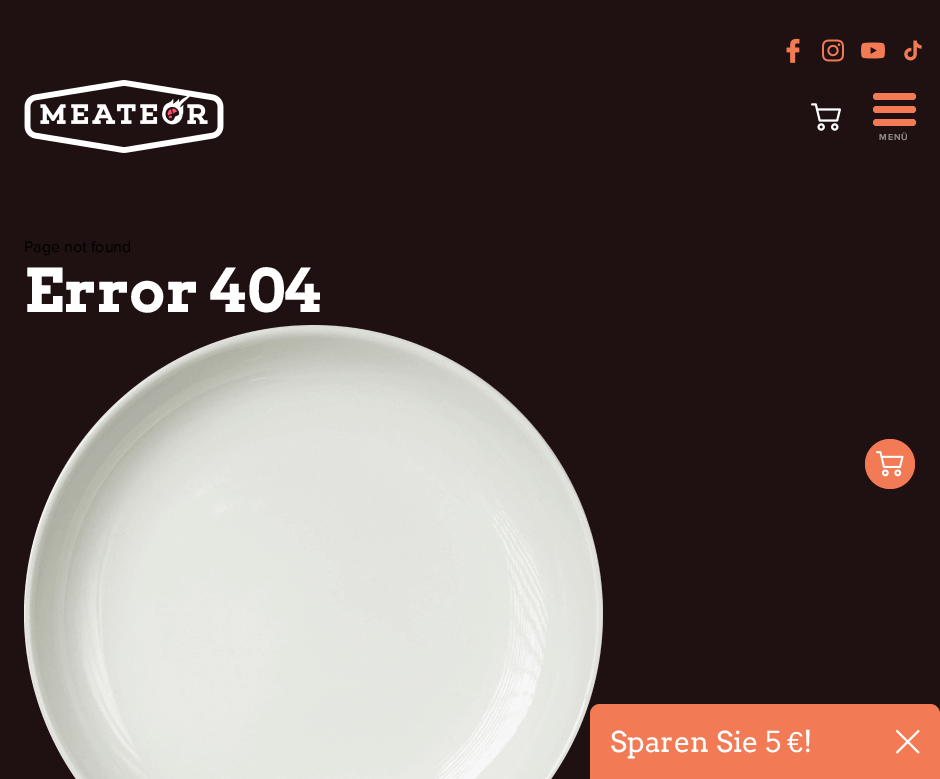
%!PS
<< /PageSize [940 779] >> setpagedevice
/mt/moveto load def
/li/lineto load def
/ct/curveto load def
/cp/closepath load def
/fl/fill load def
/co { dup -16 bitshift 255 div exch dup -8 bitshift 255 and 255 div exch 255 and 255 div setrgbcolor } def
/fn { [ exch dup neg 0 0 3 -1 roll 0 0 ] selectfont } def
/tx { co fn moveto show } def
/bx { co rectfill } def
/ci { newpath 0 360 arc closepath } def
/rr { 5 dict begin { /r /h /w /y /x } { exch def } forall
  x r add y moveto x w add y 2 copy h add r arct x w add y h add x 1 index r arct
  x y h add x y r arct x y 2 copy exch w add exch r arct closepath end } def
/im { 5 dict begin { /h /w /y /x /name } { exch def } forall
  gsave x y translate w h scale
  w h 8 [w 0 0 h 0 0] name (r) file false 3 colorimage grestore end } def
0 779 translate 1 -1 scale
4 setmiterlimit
0 0 940 779 16#1F1111 bx
(media/1.raw) 786 38 14 25 im
(media/2.raw) 822 39 22 23 im
(media/3.raw) 861 42 24 17 im
(media/4.raw) 904 40 18 21 im
(media/5.raw) 24 80 200 73 im
(media/6.raw) 811 103 30 28 im
16#F27A54 co
873 93 43 7 3.5 rr fl
873 106 43 7 3.5 rr fl
873 119 43 7 3.5 rr fl
(media/7.raw) 24 325 579 454 im
890 464 25 ci fl
(media/8.raw) 876 451 28 26 im
600 704 mt 930 704 li 935.5 704 940 708.5 940 714 ct 940 779 li 590 779 li 590 714 li 590 708.5 594.5 704 600 704 ct cp fl
(media/9.raw) 896 730 24 24 im
/ProximaNova-Bold 9 fn
16#8F8888 co
879 140 mt 1 0 (MENÜ) ashow
(Page not found) 24 252 /ProximaNova-Regular 16 16#000000 tx
(Error 404) 24 312 /Arvo-Bold 60 16#FFFFFF tx
(Sparen Sie 5) 610 752 /Arvo-Regular 28.75 16#FFFFFF tx
(€) 787 752 /LiberationSans-Regular 28.75 16#FFFFFF tx
(!) 803 752 /Arvo-Regular 28.75 16#FFFFFF tx
showpage
